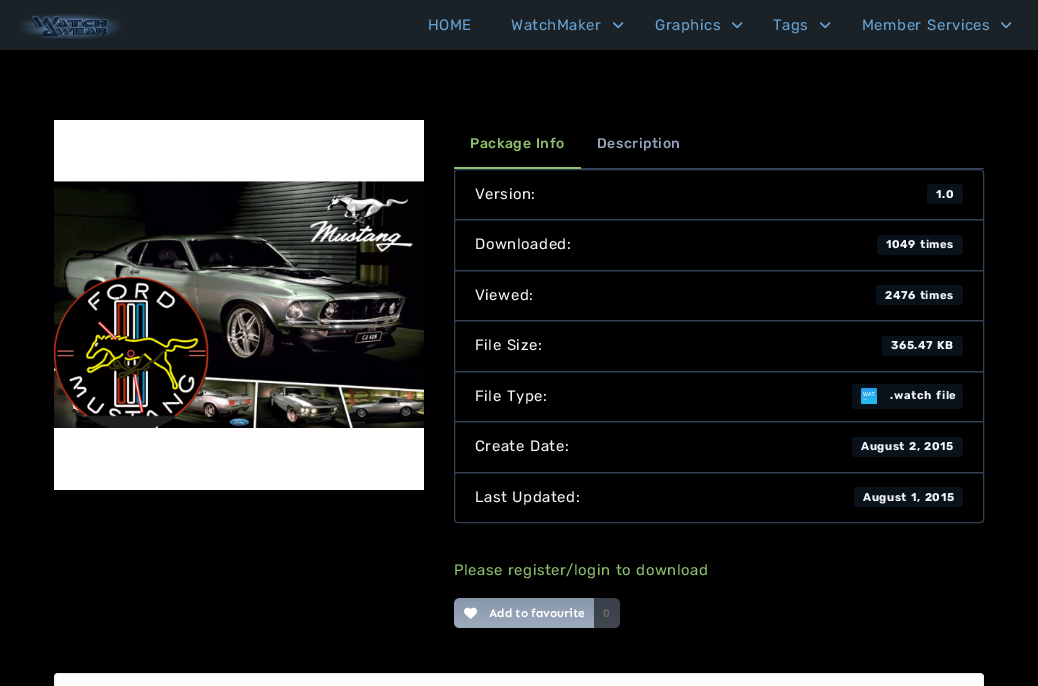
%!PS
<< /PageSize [1038 686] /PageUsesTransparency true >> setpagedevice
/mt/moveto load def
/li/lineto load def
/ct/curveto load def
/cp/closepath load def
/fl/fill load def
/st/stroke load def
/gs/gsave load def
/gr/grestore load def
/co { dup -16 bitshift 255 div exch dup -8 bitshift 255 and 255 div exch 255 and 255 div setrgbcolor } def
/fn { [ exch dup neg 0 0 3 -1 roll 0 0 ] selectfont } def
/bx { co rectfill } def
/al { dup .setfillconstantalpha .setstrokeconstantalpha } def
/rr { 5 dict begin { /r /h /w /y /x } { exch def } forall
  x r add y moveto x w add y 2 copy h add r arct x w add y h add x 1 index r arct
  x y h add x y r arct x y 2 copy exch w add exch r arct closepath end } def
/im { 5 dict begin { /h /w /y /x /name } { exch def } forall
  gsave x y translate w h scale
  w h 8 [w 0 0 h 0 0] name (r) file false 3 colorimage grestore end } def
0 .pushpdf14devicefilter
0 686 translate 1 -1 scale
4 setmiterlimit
0 0 1038 686 16#000000 bx
0 0 1038 50 16#1A2228 bx
(media/1.raw) 18 14 106 25 im
(media/2.raw) 613 22 11 7 im
(media/2.raw) 732 22 11 7 im
(media/2.raw) 820 22 11 7 im
(media/2.raw) 1001 22 11 7 im
54 120 370 370 16#FFFFFF bx
(media/3.raw) 54 181 370 247 im
581 168 403 1 16#334155 bx
454 167 127 2 16#8CBF6E bx
16#334155 co
458 169.5 mt 980 169.5 li 982 169.5 983.5 171 983.5 173 ct 983.5 219.5 li 454.5 219.5 li 454.5 173 li 454.5 171 456 169.5 458 169.5 ct cp st
16#09111A co
927 184 36 20 3 rr fl
16#334155 co
454.5 219.5 529 51 rectstroke
16#09111A co
877 235 86 20 3 rr fl
16#334155 co
454.5 270.5 529 50 rectstroke
16#09111A co
876 285 87 20 3 rr fl
16#334155 co
454.5 320.5 529 51 rectstroke
16#09111A co
882 336 81 20 3 rr fl
16#334155 co
454.5 371.5 529 50 rectstroke
16#09111A co
852 384 111 25 3 rr fl
(media/4.raw) 861 388 16 16 im
16#334155 co
454.5 421.5 529 51 rectstroke
16#09111A co
852 437 111 20 3 rr fl
16#334155 co
454.5 472.5 mt 983.5 472.5 li 983.5 519 li 983.5 521 982 522.5 980 522.5 ct 458 522.5 li 456 522.5 454.5 521 454.5 519 ct cp st
16#09111A co
854 487 109 20 3 rr fl
16#94A3B8 co
460 598 mt 594 598 li 594 628 li 460 628 li 456.5 628 454 625.5 454 622 ct 454 604 li 454 600.5 456.5 598 460 598 ct cp fl
0.08 al
gs 460 598 mt 594 598 li 594 628 li 460 628 li 456.5 628 454 625.5 454 622 ct 454 604 li 454 600.5 456.5 598 460 598 ct cp clip newpath
<< /ShadingType 2 /ColorSpace /DeviceRGB /Coords [524 598 524 628] /Extend [true true] /Function << /FunctionType 2 /Domain [0 1] /C0 [0 0 0] /C1 [1 1 1] /N 1 >> >> shfill gr
1 al
(media/5.raw) 464 607 13 12 im
0.4 al
593 598 mt 614 598 li 617.5 598 620 600.5 620 604 ct 620 622 li 620 625.5 617.5 628 614 628 ct 593 628 li cp fl
0.03 al
gs 593 598 mt 620 598 li 620 628 li 593 628 li cp clip newpath
<< /ShadingType 2 /ColorSpace /DeviceRGB /Coords [607 598 607 628] /Extend [true true] /Function << /FunctionType 2 /Domain [0 1] /C0 [0 0 0] /C1 [1 1 1] /N 1 >> >> shfill gr
1 al
16#FFFFFF co
54 673 930 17 4 rr fl
0.07 al
16#000000 co
54.5 673.5 929 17 3.5 rr st
/Rubik-Regular 15 fn
1 al
16#66A1D1 co
428 30 mt .5 0 (HOME) ashow
511 30 mt .5 0 (WatchMaker) ashow
655 30 mt .5 0 (Graphics) ashow
773 30 mt .5 0 (Tags) ashow
862 30 mt 1 0 32 .5 0 (Member Services) awidthshow
/Rubik-Medium 14 fn
16#8CBF6E co
470 148 mt 1 0 32 .5 0 (Package Info) awidthshow
16#94A3B8 co
597 148 mt .5 0 (Description) ashow
/Rubik-Regular 15 fn
16#F1F5F9 co
475 199 mt .5 0 (Version:) ashow
/Rubik-Bold 11.25 fn
936 198 mt .5 0 (1.0) ashow
/Rubik-Regular 15 fn
475 249 mt .5 0 (Downloaded:) ashow
/Rubik-Bold 11.25 fn
886 248 mt 1 0 32 .5 0 (1049 times) awidthshow
/Rubik-Regular 15 fn
475 300 mt .5 0 (Viewed:) ashow
/Rubik-Bold 11.25 fn
885 299 mt 1 0 32 .5 0 (2476 times) awidthshow
/Rubik-Regular 15 fn
475 350 mt 1 0 32 .5 0 (File Size:) awidthshow
/Rubik-Bold 11.25 fn
891 349 mt 1 0 32 .5 0 (365.47 KB) awidthshow
/Rubik-Regular 15 fn
475 401 mt 1 0 32 .5 0 (File Type:) awidthshow
/Rubik-Bold 11.25 fn
890 399 mt 2 0 32 .5 0 (.watch file) awidthshow
/Rubik-Regular 15 fn
475 451 mt 1 0 32 .5 0 (Create Date:) awidthshow
/Rubik-Bold 11.25 fn
861 450 mt 1 0 32 .5 0 (August 2, 2015) awidthshow
/Rubik-Regular 15 fn
475 502 mt 1 0 32 .5 0 (Last Updated:) awidthshow
/Rubik-Bold 11.25 fn
863 501 mt 1 0 32 .5 0 (August 1, 2015) awidthshow
/Rubik-Regular 15 fn
16#8CBF6E co
454 575 mt 1 0 32 .5 0 (Please register/login to download) awidthshow
/Sen-Bold 12 fn
16#FFFFFF co
489 617 mt -.1 0 (Add to favourite) ashow
16#666666 co
603 617 mt -.1 0 (0) ashow
.poppdf14devicefilter showpage
